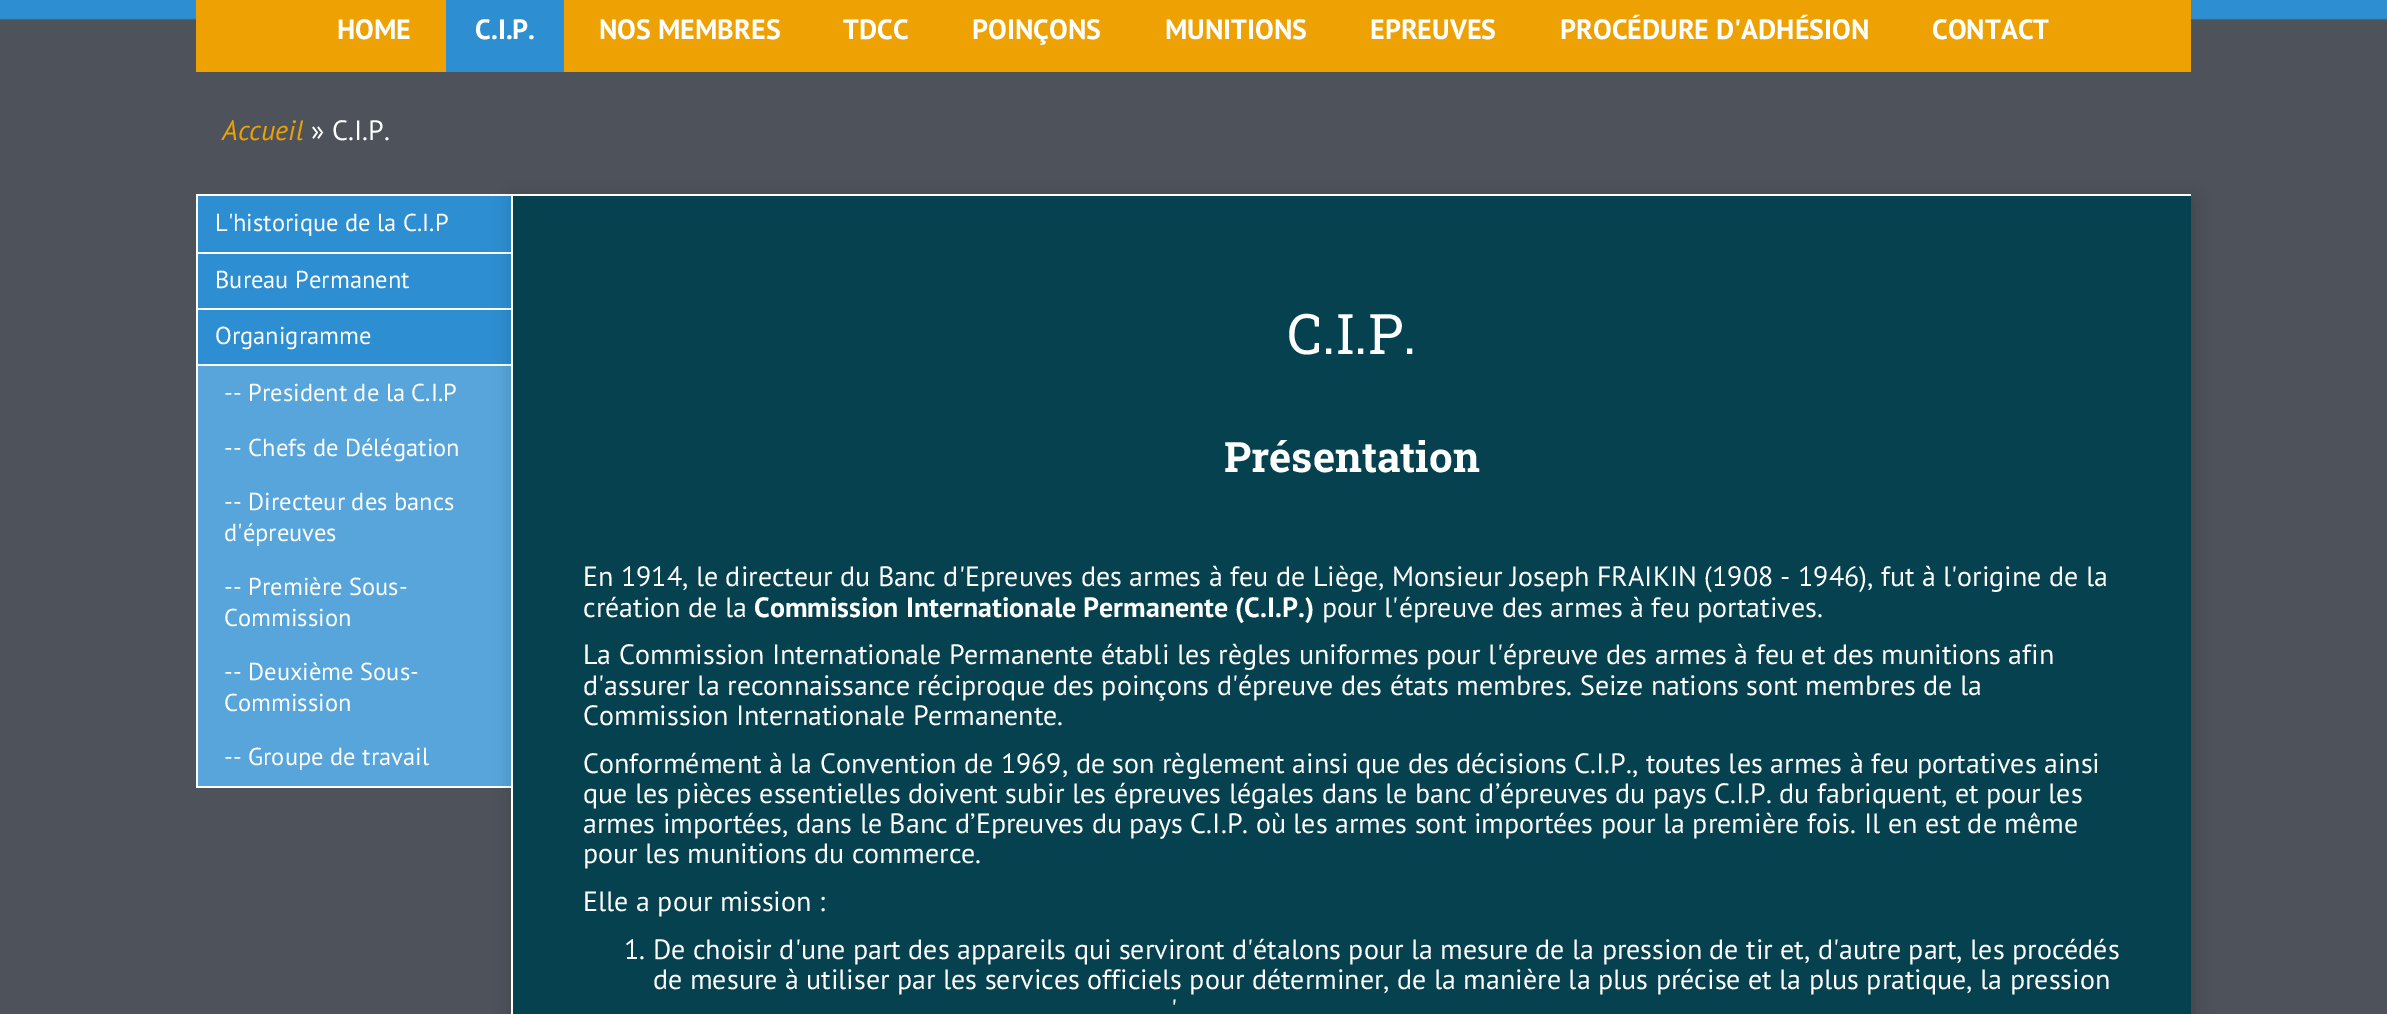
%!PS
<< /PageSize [2387 1014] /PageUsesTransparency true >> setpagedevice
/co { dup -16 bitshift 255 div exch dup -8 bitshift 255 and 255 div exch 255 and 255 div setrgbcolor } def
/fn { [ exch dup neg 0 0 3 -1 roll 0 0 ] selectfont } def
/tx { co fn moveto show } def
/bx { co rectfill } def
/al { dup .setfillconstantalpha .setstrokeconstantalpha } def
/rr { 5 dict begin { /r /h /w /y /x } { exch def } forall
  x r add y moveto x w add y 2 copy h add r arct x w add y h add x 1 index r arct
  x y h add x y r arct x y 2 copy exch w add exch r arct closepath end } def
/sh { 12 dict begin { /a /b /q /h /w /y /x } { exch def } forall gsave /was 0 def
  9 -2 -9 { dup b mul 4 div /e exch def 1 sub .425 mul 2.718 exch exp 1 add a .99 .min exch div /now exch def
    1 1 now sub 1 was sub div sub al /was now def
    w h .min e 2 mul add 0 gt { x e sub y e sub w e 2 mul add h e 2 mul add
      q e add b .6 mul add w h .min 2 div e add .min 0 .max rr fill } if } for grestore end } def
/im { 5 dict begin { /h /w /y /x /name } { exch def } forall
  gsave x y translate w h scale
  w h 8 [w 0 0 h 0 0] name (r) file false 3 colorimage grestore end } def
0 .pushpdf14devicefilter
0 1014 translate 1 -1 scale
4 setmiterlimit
0 0 2387 1014 16#4E525A bx
(media/1.raw) 0 0 2387 20 im
196 0 1995 72 16#EDA103 bx
446 0 118 72 16#2D8ED2 bx
196 194 315 2 16#FFFFFF bx
196 194 2 594 16#FFFFFF bx
198 196 313 56 16#2D8ED2 bx
198 252 313 2 16#FFFFFF bx
198 254 313 54 16#2D8ED2 bx
198 308 313 2 16#FFFFFF bx
198 310 313 54 16#2D8ED2 bx
198 364 313 2 16#FFFFFF bx
198 366 313 420 16#57A5DB bx
198 786 313 2 16#FFFFFF bx
16#000000 co
513 200 1680 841 0 9 .2 sh
513 196 1678 818 16#06414F bx
511 194 1680 2 16#FFFFFF bx
511 194 2 820 16#FFFFFF bx
(HOME) 337 39 /PTSans-Bold 28 16#FFFFFF tx
(C.I.P.) 475 39 /PTSans-Bold 28 16#FFFFFF tx
(NOS MEMBRES) 599 39 /PTSans-Bold 28 16#FFFFFF tx
(TDCC) 843 39 /PTSans-Bold 28 16#FFFFFF tx
(POINÇONS) 972 39 /PTSans-Bold 28 16#FFFFFF tx
(MUNITIONS) 1165 39 /PTSans-Bold 28 16#FFFFFF tx
(EPREUVES) 1370 39 /PTSans-Bold 28 16#FFFFFF tx
(PROCÉDURE D'ADHÉSION) 1560 39 /PTSans-Bold 28 16#FFFFFF tx
(CONTACT) 1932 39 /PTSans-Bold 28 16#FFFFFF tx
(Accueil) 222 140 /PTSans-Italic 28 16#EDA103 tx
(» C.I.P.) 311 140 /PTSans-Regular 28 16#FFFFFF tx
(L'historique de la C.I.P) 215 231 /PTSans-Regular 24.5 16#FFFFFF tx
(Bureau Permanent) 215 288 /PTSans-Regular 24.5 16#FFFFFF tx
(Organigramme) 215 344 /PTSans-Regular 24.5 16#FFFFFF tx
(-- President de la C.I.P) 224 401 /PTSans-Regular 24.5 16#FFFFFF tx
(-- Chefs de Délégation) 224 456 /PTSans-Regular 24.5 16#FFFFFF tx
(-- Directeur des bancs) 224 510 /PTSans-Regular 24.5 16#FFFFFF tx
(d'épreuves) 224 541 /PTSans-Regular 24.5 16#FFFFFF tx
(-- Première Sous-) 224 595 /PTSans-Regular 24.5 16#FFFFFF tx
(Commission) 224 626 /PTSans-Regular 24.5 16#FFFFFF tx
(-- Deuxième Sous-) 224 680 /PTSans-Regular 24.5 16#FFFFFF tx
(Commission) 224 711 /PTSans-Regular 24.5 16#FFFFFF tx
(-- Groupe de travail) 224 765 /PTSans-Regular 24.5 16#FFFFFF tx
(C.I.P.) 1287 354 /RobotoSlab-Regular 56 16#FFFFFF tx
(Présentation) 1224 472 /RobotoSlab-Bold 42 16#FFFFFF tx
(En 1914, le directeur du Banc d'Epreuves des armes à feu de Liège, Monsieur Joseph FRAIKIN \(1908 - 1946\), fut à l'origine de la) 583 586 /PTSans-Regular 28 16#FFFFFF tx
(création de la) 583 617 /PTSans-Regular 28 16#FFFFFF tx
(Commission Internationale Permanente \(C.I.P.\)) 754 617 /PTSans-Bold 28 16#FFFFFF tx
(pour l'épreuve des armes à feu portatives.) 1322 617 /PTSans-Regular 28 16#FFFFFF tx
(La Commission Internationale Permanente établi les règles uniformes pour l'épreuve des armes à feu et des munitions afin) 583 664 /PTSans-Regular 28 16#FFFFFF tx
(d'assurer la reconnaissance réciproque des poinçons d'épreuve des états membres. Seize nations sont membres de la) 583 695 /PTSans-Regular 28 16#FFFFFF tx
(Commission Internationale Permanente.) 583 725 /PTSans-Regular 28 16#FFFFFF tx
(Conformément à la Convention de 1969, de son règlement ainsi que des décisions C.I.P., toutes les armes à feu portatives ainsi) 583 773 /PTSans-Regular 28 16#FFFFFF tx
(que les pièces essentielles doivent subir les épreuves légales dans le banc d’épreuves du pays C.I.P. du fabriquent, et pour les) 583 803 /PTSans-Regular 28 16#FFFFFF tx
(armes importées, dans le Banc d’Epreuves du pays C.I.P. où les armes sont importées pour la première fois. Il en est de même) 583 833 /PTSans-Regular 28 16#FFFFFF tx
(pour les munitions du commerce.) 583 863 /PTSans-Regular 28 16#FFFFFF tx
(Elle a pour mission :) 583 911 /PTSans-Regular 28 16#FFFFFF tx
(1. De choisir d'une part des appareils qui serviront d'étalons pour la mesure de la pression de tir et, d'autre part, les procédés) 624 959 /PTSans-Regular 28 16#FFFFFF tx
(de mesure à utiliser par les services officiels pour déterminer, de la manière la plus précise et la plus pratique, la pression) 653 989 /PTSans-Regular 28 16#FFFFFF tx
(') 1171 1019 /PTSans-Regular 28 16#FFFFFF tx
.poppdf14devicefilter showpage
